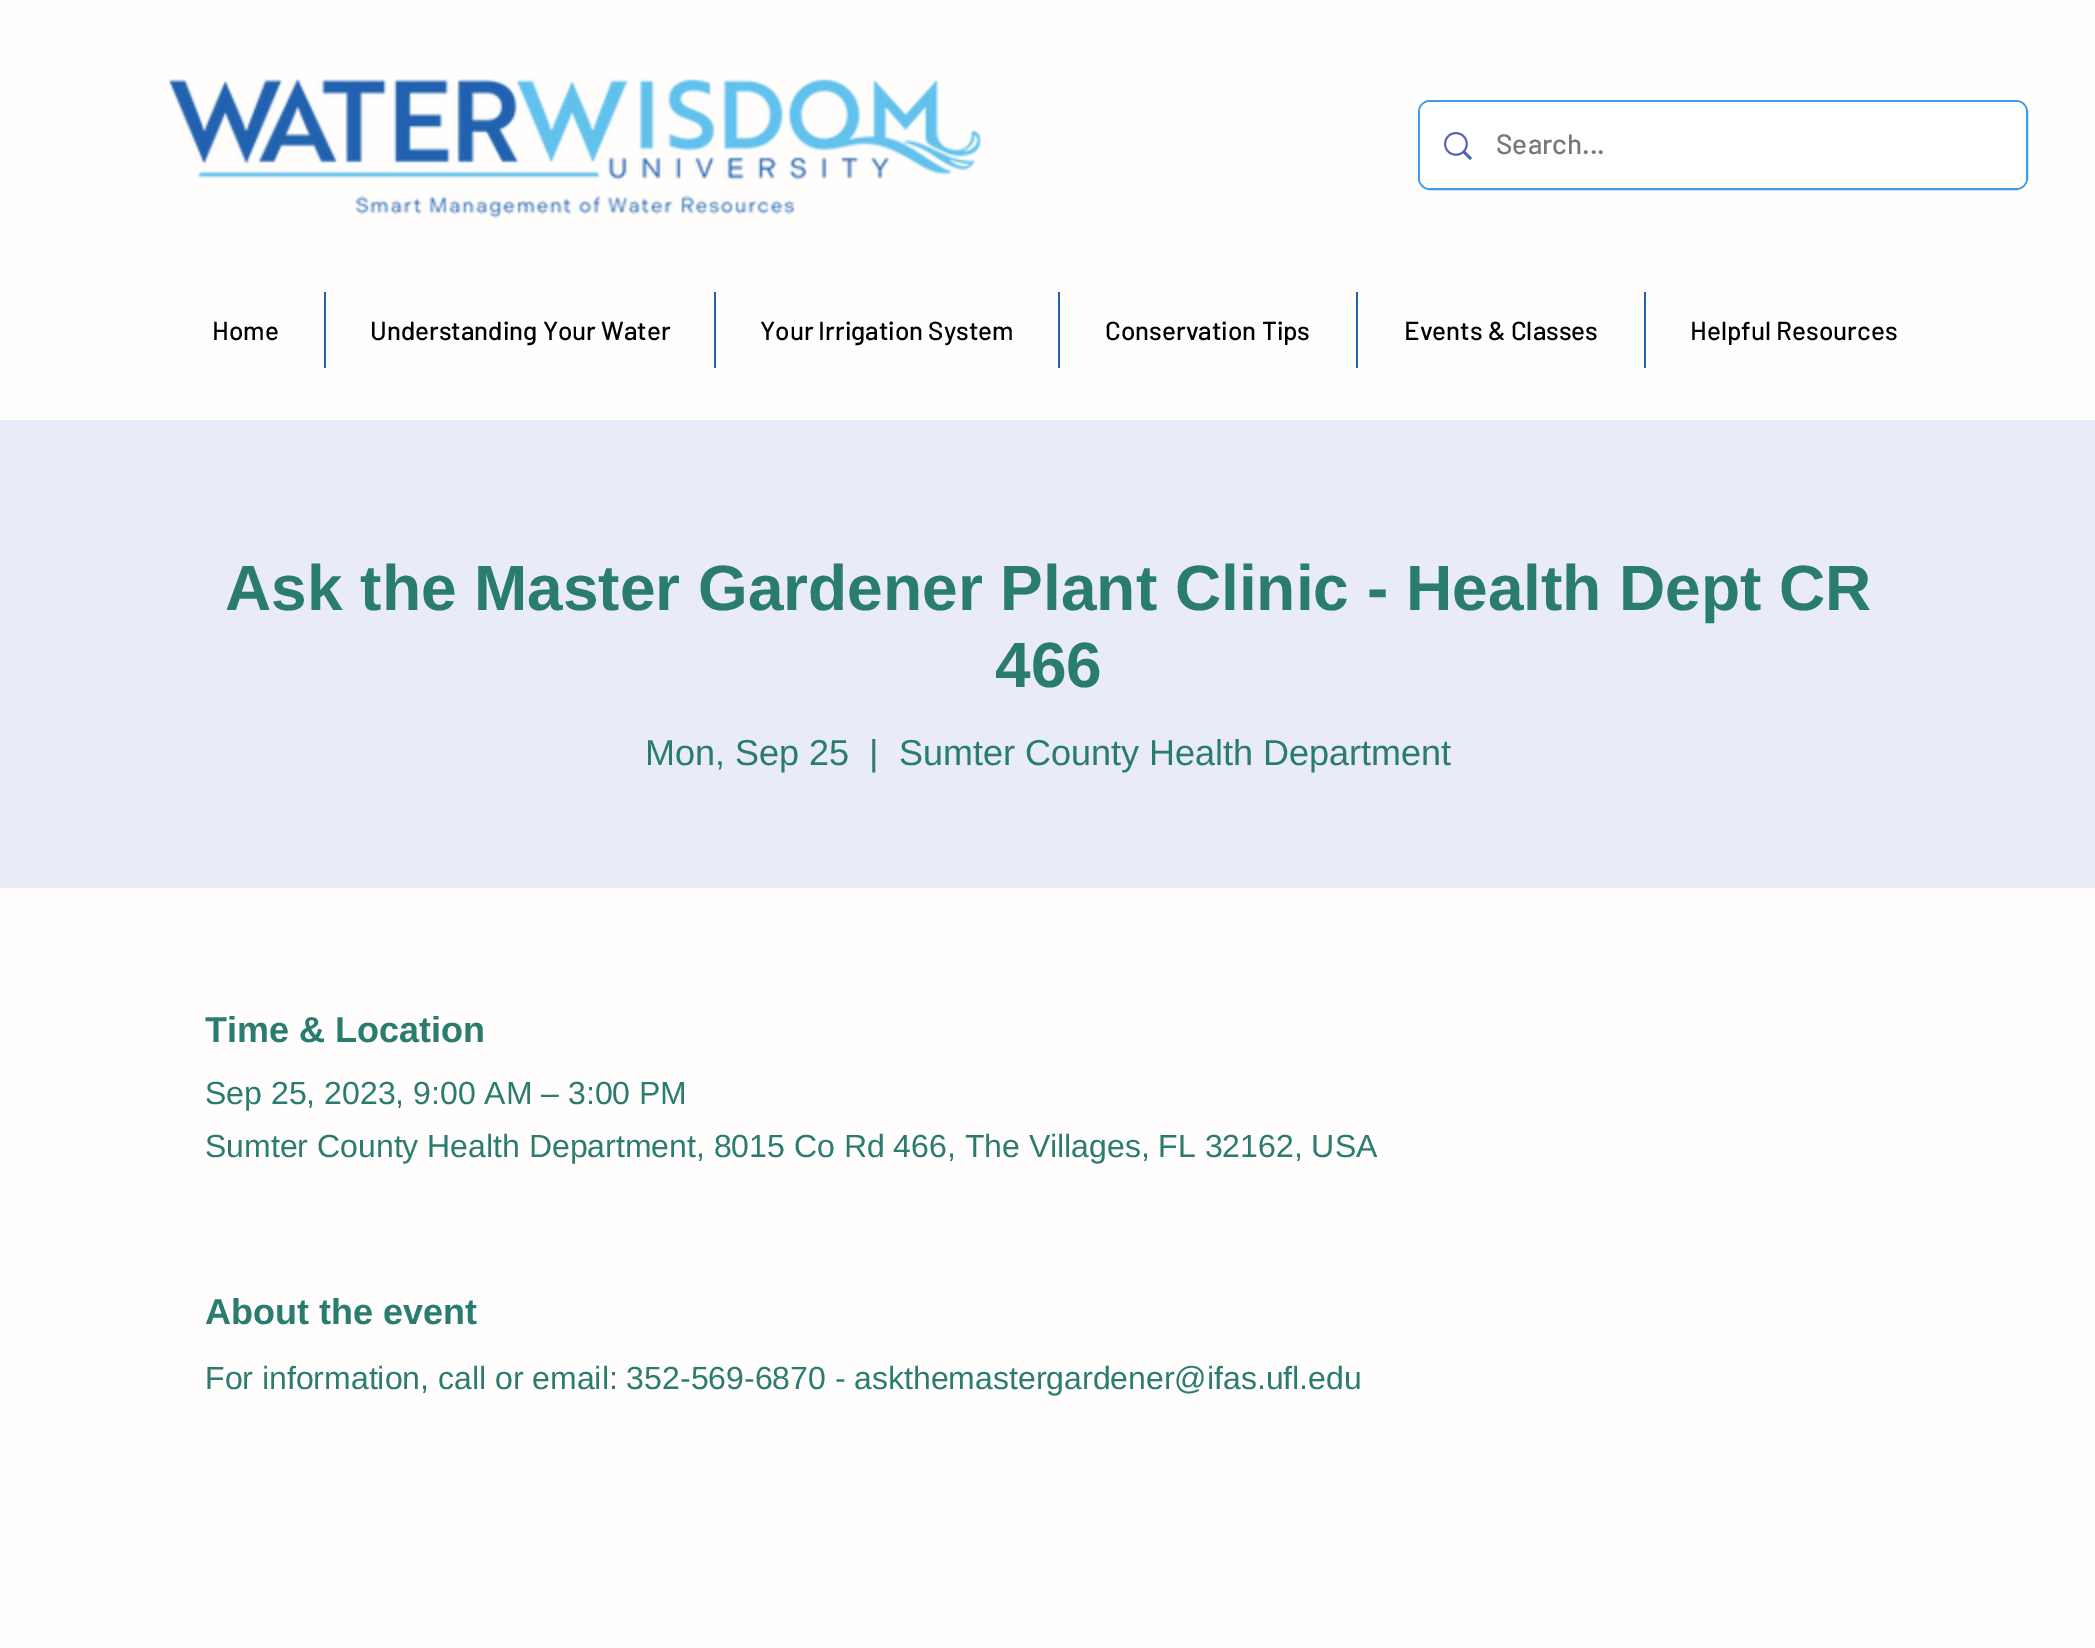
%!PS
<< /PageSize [2095 1648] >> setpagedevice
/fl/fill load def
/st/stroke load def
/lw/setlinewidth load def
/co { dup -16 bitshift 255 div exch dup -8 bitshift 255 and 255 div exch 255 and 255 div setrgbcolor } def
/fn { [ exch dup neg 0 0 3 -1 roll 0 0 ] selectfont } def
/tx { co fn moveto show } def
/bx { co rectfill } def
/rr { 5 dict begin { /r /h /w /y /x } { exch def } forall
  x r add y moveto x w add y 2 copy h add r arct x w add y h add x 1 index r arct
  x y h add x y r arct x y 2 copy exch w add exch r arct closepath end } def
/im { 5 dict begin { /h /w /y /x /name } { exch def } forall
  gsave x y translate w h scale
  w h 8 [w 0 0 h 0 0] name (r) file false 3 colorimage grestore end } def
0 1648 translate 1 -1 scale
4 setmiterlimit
0 0 2095 1648 16#FFFEFC bx
(media/1.raw) 168 78 814 141 im
16#3D9BE9 co
2 lw
1419 101 608 88 11 rr st
16#FFFFFF co
1420 102 606 86 10 rr fl
(media/2.raw) 1444 132 28 28 im
324 292 2 76 16#2062AF bx
714 292 2 76 16#2062AF bx
1058 292 2 76 16#2062AF bx
1356 292 2 76 16#2062AF bx
1644 292 2 76 16#2062AF bx
0 420 2095 468 16#E9ECF6 bx
(Search...) 1496 154 /Barlow-Medium 28 16#787878 tx
(Home) 212 340 /Barlow-Medium 26 16#000000 tx
(Understanding Your Water) 370 340 /Barlow-Medium 26 16#000000 tx
(Your Irrigation System) 760 340 /Barlow-Medium 26 16#000000 tx
(Conservation Tips) 1105 340 /Barlow-Medium 26 16#000000 tx
(Events & Classes) 1404 340 /Barlow-Medium 26 16#000000 tx
(Helpful Resources) 1690 340 /Barlow-Medium 26 16#000000 tx
(Ask the Master Gardener Plant Clinic - Health Dept CR) 225 610 /LiberationSans-Bold 64 16#2A7C6F tx
(466) 995 687 /LiberationSans-Bold 64 16#2A7C6F tx
(Mon, Sep 25) 645 765 /LiberationSans-Regular 36 16#2A7C6F tx
(|) 869 765 /LiberationSans-Regular 36 16#2A7C6F tx
(Sumter County Health Department) 899 765 /LiberationSans-Regular 36 16#2A7C6F tx
(Time & Location) 205 1042 /LiberationSans-Bold 36 16#2A7C6F tx
(Sep 25, 2023, 9:00 AM – 3:00 PM) 205 1104 /LiberationSans-Regular 32 16#2A7C6F tx
(Sumter County Health Department, 8015 Co Rd 466, The Villages, FL 32162, USA) 205 1157 /LiberationSans-Regular 32 16#2A7C6F tx
(About the event) 205 1324 /LiberationSans-Bold 36 16#2A7C6F tx
(For information, call or email: 352-569-6870 - askthemastergardener@ifas.ufl.edu) 205 1389 /LiberationSans-Regular 32 16#2A7C6F tx
showpage
